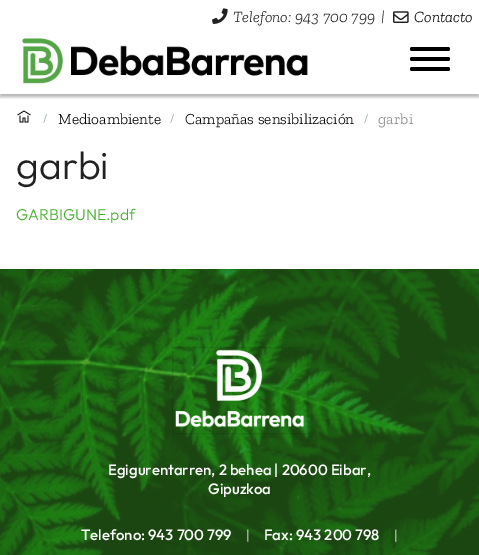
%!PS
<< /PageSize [479 555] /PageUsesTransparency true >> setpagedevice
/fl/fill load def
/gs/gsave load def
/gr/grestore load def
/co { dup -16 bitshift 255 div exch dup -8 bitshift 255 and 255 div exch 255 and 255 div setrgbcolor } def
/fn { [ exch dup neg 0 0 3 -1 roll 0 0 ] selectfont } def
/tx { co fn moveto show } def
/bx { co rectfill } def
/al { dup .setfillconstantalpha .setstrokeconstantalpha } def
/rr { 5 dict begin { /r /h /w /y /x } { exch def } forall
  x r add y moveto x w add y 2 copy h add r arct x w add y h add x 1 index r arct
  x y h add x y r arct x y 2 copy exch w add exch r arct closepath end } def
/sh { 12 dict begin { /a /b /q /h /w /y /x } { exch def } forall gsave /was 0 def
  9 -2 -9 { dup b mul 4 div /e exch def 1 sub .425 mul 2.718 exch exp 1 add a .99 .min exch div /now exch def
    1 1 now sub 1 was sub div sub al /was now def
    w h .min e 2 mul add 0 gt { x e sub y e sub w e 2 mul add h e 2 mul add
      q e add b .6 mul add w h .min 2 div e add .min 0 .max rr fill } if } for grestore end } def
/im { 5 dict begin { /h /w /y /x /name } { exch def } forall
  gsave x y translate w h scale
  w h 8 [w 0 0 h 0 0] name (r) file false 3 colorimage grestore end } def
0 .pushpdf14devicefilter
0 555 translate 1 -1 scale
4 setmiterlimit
0 0 479 555 16#FFFFFF bx
gs
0 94 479 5 rectclip
16#010101 co
0 7 479 90 0 1.5 .3 sh
gr
(media/1.raw) 212 8 16 16 im
(media/2.raw) 393 11 16 12 im
(media/3.raw) 22 37 287 48 im
16#000000 co
410 47 40 4 2 rr fl
410 57 40 4 2 rr fl
410 67 40 4 2 rr fl
(media/4.raw) 17 110 14 13 im
(media/5.raw) 0 269 479 286 im
0.1 al
172.5 347.5 135 86 rectstroke
1 al
(media/6.raw) 175 349 130 80 im
(Telefono: 943 700 799) 233 22 /ZillaSlab-LightItalic 15.75 16#212121 tx
(|) 381 22 /ZillaSlab-LightItalic 15.75 16#212121 tx
(Contacto) 414 22 /ZillaSlab-LightItalic 15.75 16#000000 tx
(/) 43 123 /ZillaSlab-Light 13 16#85A09F tx
(Medioambiente) 58 124 /ZillaSlab-Light 15.4 16#000000 tx
(/) 170 123 /ZillaSlab-Light 13 16#85A09F tx
(Campañas sensibilización) 185 124 /ZillaSlab-Light 15.4 16#000000 tx
(/) 364 123 /ZillaSlab-Light 13 16#85A09F tx
(garbi) 378 124 /ZillaSlab-Regular 15.4 16#999999 tx
(garbi) 16 179 /Outfit-Light 39 16#212121 tx
(GARBIGUNE.pdf) 16 220 /Outfit-Light 15.75 16#43B02A tx
(Egigurentarren, 2 behea | 20600 Eibar,) 108 475 /Outfit-Medium 15 16#FFFFFF tx
(Gipuzkoa) 208 494 /Outfit-Medium 15 16#FFFFFF tx
(Telefono: 943 700 799) 81 540 /Outfit-Medium 15 16#FFFFFF tx
(|) 246 540 /Outfit-Light 14 16#FFFFFF tx
(Fax: 943 200 798) 264 540 /Outfit-Medium 15 16#FFFFFF tx
(|) 394 540 /Outfit-Light 14 16#FFFFFF tx
.poppdf14devicefilter showpage
